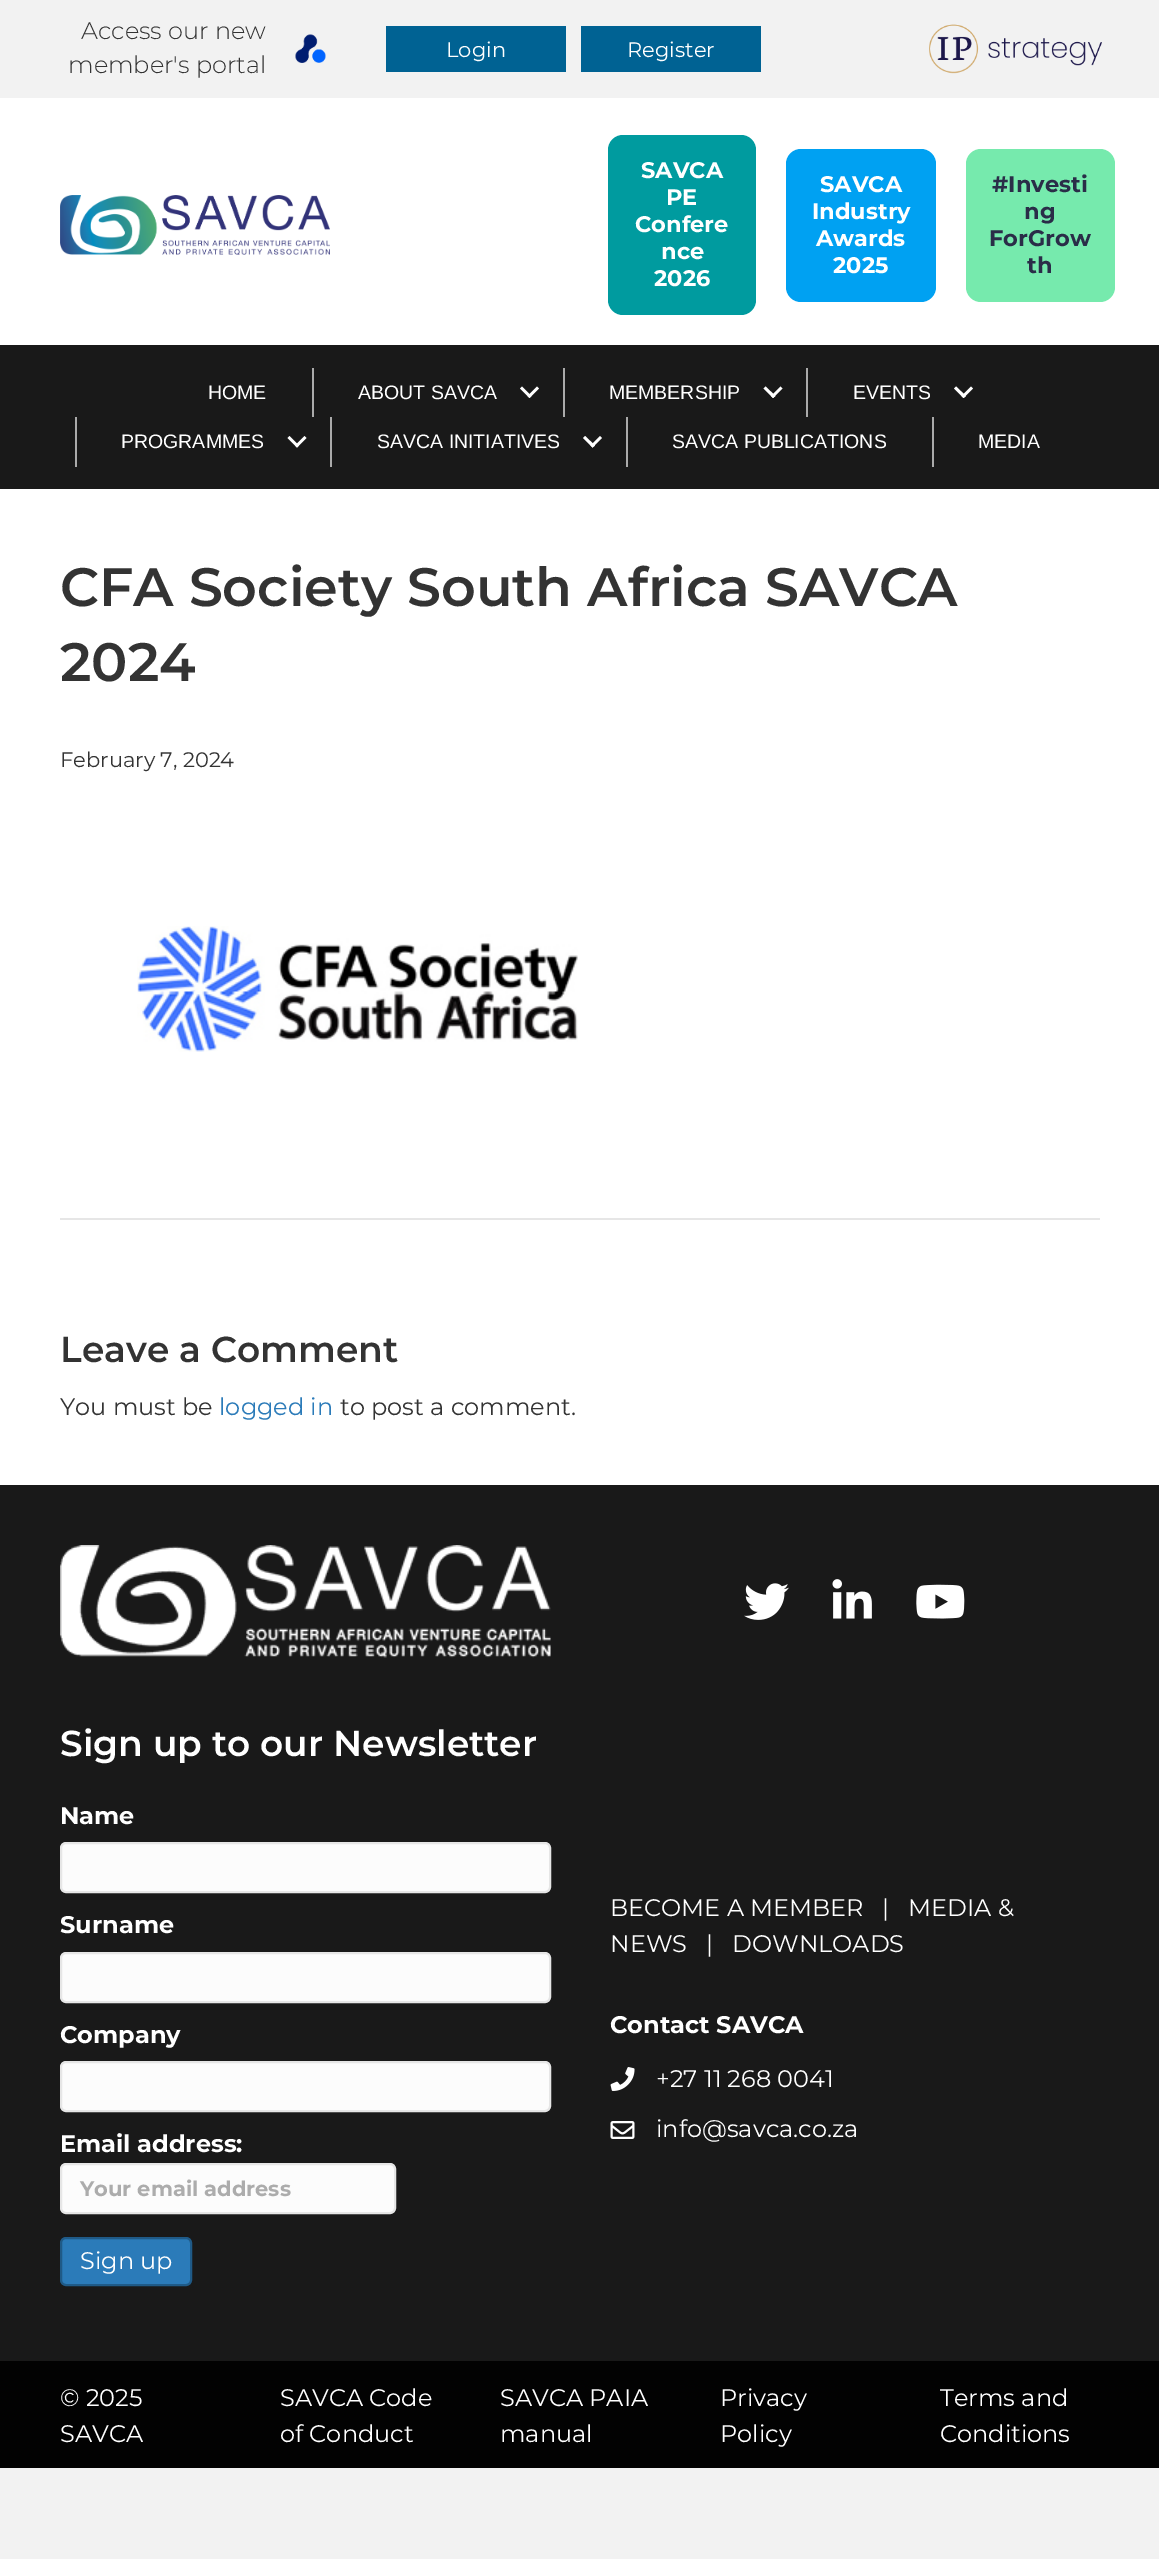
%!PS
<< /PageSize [1159 2559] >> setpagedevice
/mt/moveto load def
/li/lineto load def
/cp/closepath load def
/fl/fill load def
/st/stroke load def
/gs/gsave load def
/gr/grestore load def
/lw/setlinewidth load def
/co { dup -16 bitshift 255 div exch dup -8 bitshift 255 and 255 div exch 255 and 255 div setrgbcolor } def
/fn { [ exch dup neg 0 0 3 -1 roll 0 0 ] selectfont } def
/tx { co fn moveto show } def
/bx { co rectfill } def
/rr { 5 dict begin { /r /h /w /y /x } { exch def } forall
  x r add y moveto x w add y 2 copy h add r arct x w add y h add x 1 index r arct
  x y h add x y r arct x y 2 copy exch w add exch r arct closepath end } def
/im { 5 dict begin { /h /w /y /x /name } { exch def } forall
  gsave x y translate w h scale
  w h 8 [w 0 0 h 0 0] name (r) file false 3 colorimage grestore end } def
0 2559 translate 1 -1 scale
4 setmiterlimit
0 0 1159 2559 16#F2F2F2 bx
(media/1.raw) 295 34 31 29 im
386 26 180 46 16#006293 bx
581 26 180 46 16#006293 bx
(media/2.raw) 929 24 173 50 im
0 98 1159 247 16#FFFFFF bx
(media/3.raw) 60 195 270 60 im
16#009B9F co
608 135 148 180 15 rr fl
16#00A1F2 co
786 149 150 153 15 rr fl
16#76EAAD co
966 149 149 153 15 rr fl
0 345 1159 144 16#191919 bx
312 368 2 49 16#AAAAAA bx
16#FFFFFF co
537 386.5 mt 539 388.5 li 529.5 398 li 527.5 396 li cp fl
522 386.5 mt 531.5 396 li 529.5 398 li 520 388.5 li cp fl
563 368 2 49 16#AAAAAA bx
16#FFFFFF co
780.5 386.5 mt 782.5 388.5 li 773 398 li 771 396 li cp fl
765.5 386.5 mt 775.5 396 li 773 398 li 763.5 388.5 li cp fl
806 368 2 49 16#AAAAAA bx
16#FFFFFF co
971 386.5 mt 973 388.5 li 963.5 398 li 961.5 396 li cp fl
956 386.5 mt 966 396 li 963.5 398 li 954 388.5 li cp fl
75 417 2 50 16#AAAAAA bx
16#FFFFFF co
304.5 436 mt 306.5 438 li 297 447.5 li 295 445.5 li cp fl
289.5 436 mt 299 445.5 li 297 447.5 li 287.5 438 li cp fl
330 417 2 50 16#AAAAAA bx
16#FFFFFF co
600 436 mt 602 438 li 592.5 447.5 li 590.5 445.5 li cp fl
585 436 mt 595 445.5 li 592.5 447.5 li 583 438 li cp fl
626 417 2 50 16#AAAAAA bx
932 417 2 50 16#AAAAAA bx
0 489 1159 996 16#FFFFFF bx
(media/4.raw) 137 926 441 126 im
60 1218 1040 2 16#E6E6E6 bx
0 1485 1159 876 16#191919 bx
(media/5.raw) 60 1545 491 113 im
(media/6.raw) 744 1583 45 37 im
(media/7.raw) 832 1579 40 40 im
(media/8.raw) 916 1584 49 35 im
16#FCFCFC co
61 1843 489 49 5 rr gs fl gr
16#E6E6E6 co
2 lw
st
16#FCFCFC co
61 1953 489 49 5 rr gs fl gr
16#E6E6E6 co
st
16#FCFCFC co
61 2062 489 49 5 rr gs fl gr
16#E6E6E6 co
st
16#FCFCFC co
61 2164 334 49 5 rr gs fl gr
16#E6E6E6 co
st
16#2B7BB9 co
61 2238 130 47 5 rr gs fl gr
16#1F5A87 co
st
(media/9.raw) 610 2067 25 24 im
(media/10.raw) 610 2121 25 18 im
0 2361 1159 107 16#020202 bx
(Access our new) 81 39 /Montserrat-Light 24 16#333333 tx
(member's portal) 68 73 /Montserrat-Light 24 16#333333 tx
(Login) 446 57 /Montserrat-Regular 21 16#FFFFFF tx
(Register) 627 57 /Montserrat-Regular 21 16#FFFFFF tx
(SAVCA) 641 178 /Montserrat-Bold 22.5 16#FFFFFF tx
(PE) 666 205 /Montserrat-Bold 22.5 16#FFFFFF tx
(Confere) 635 232 /Montserrat-Bold 22.5 16#FFFFFF tx
(nce) 661 259 /Montserrat-Bold 22.5 16#FFFFFF tx
(2026) 654 286 /Montserrat-Bold 22.5 16#FFFFFF tx
(SAVCA) 820 192 /Montserrat-Bold 22.5 16#FFFFFF tx
(Industry) 812 219 /Montserrat-Bold 22.5 16#FFFFFF tx
(Awards) 816 246 /Montserrat-Bold 22.5 16#FFFFFF tx
(2025) 833 273 /Montserrat-Bold 22.5 16#FFFFFF tx
(#Investi) 992 192 /Montserrat-Bold 22.5 16#2A2D48 tx
(ng) 1024 219 /Montserrat-Bold 22.5 16#2A2D48 tx
(ForGrow) 989 246 /Montserrat-Bold 22.5 16#2A2D48 tx
(th) 1027 273 /Montserrat-Bold 22.5 16#2A2D48 tx
(HOME) 208 399 /LiberationSans-Regular 19.5 16#FFFFFF tx
(ABOUT SAVCA) 358 399 /LiberationSans-Regular 19.5 16#FFFFFF tx
(MEMBERSHIP) 609 399 /LiberationSans-Regular 19.5 16#FFFFFF tx
(EVENTS) 853 399 /LiberationSans-Regular 19.5 16#FFFFFF tx
(PROGRAMMES) 121 448 /LiberationSans-Regular 19.5 16#FFFFFF tx
(SAVCA INITIATIVES) 377 448 /LiberationSans-Regular 19.5 16#FFFFFF tx
(SAVCA PUBLICATIONS) 672 448 /LiberationSans-Regular 19.5 16#FFFFFF tx
(MEDIA) 978 448 /LiberationSans-Regular 19.5 16#FFFFFF tx
(CFA Society South Africa SAVCA) 60 606 /Montserrat-SemiBold 54 16#333333 tx
(2024) 60 681 /Montserrat-SemiBold 54 16#333333 tx
(February 7, 2024) 60 767 /Montserrat-Regular 21 16#333333 tx
(Leave a Comment) 60 1362 /Montserrat-SemiBold 36 16#333333 tx
(You must be) 60 1415 /Montserrat-Regular 24 16#333333 tx
(logged in) 219 1415 /Montserrat-Regular 24 16#2B7BB9 tx
(to post a comment.) 340 1415 /Montserrat-Regular 24 16#333333 tx
(Sign up to our Newsletter) 60 1756 /Montserrat-SemiBold 36 16#FFFFFF tx
(Name) 60 1824 /Montserrat-Bold 24 16#FFFFFF tx
(Surname) 60 1933 /Montserrat-Bold 24 16#FFFFFF tx
(Company) 60 2043 /Montserrat-Bold 24 16#FFFFFF tx
(Email address:) 60 2152 /Montserrat-Bold 24 16#FFFFFF tx
(Your email address) 80 2196 /Montserrat-Bold 21 16#ACACAC tx
(Sign up) 80 2269 /Montserrat-Regular 24 16#FFFFFF tx
(BECOME A MEMBER) 610 1916 /Montserrat-Regular 24 16#FFFFFF tx
(|) 882 1916 /Montserrat-Regular 24 16#FFFFFF tx
(MEDIA &) 908 1916 /Montserrat-Regular 24 16#FFFFFF tx
(NEWS) 610 1952 /Montserrat-Regular 24 16#FFFFFF tx
(|) 706 1952 /Montserrat-Regular 24 16#FFFFFF tx
(DOWNLOADS) 732 1952 /Montserrat-Regular 24 16#FFFFFF tx
(Contact SAVCA) 610 2033 /Montserrat-Bold 24 16#FFFFFF tx
(+27 11 268 0041) 656 2087 /Montserrat-Regular 24 16#FFFFFF tx
(info@savca.co.za) 656 2137 /Montserrat-Regular 24 16#FFFFFF tx
(© 2025) 60 2406 /Montserrat-Regular 24 16#FFFFFF tx
(SAVCA) 60 2442 /Montserrat-Regular 24 16#FFFFFF tx
(SAVCA Code) 280 2406 /Montserrat-Regular 24 16#FFFFFF tx
(of Conduct) 280 2442 /Montserrat-Regular 24 16#FFFFFF tx
(SAVCA PAIA) 500 2406 /Montserrat-Regular 24 16#FFFFFF tx
(manual) 500 2442 /Montserrat-Regular 24 16#FFFFFF tx
(Privacy) 720 2406 /Montserrat-Regular 24 16#FFFFFF tx
(Policy) 720 2442 /Montserrat-Regular 24 16#FFFFFF tx
(Terms and) 940 2406 /Montserrat-Regular 24 16#FFFFFF tx
(Conditions) 940 2442 /Montserrat-Regular 24 16#FFFFFF tx
showpage
